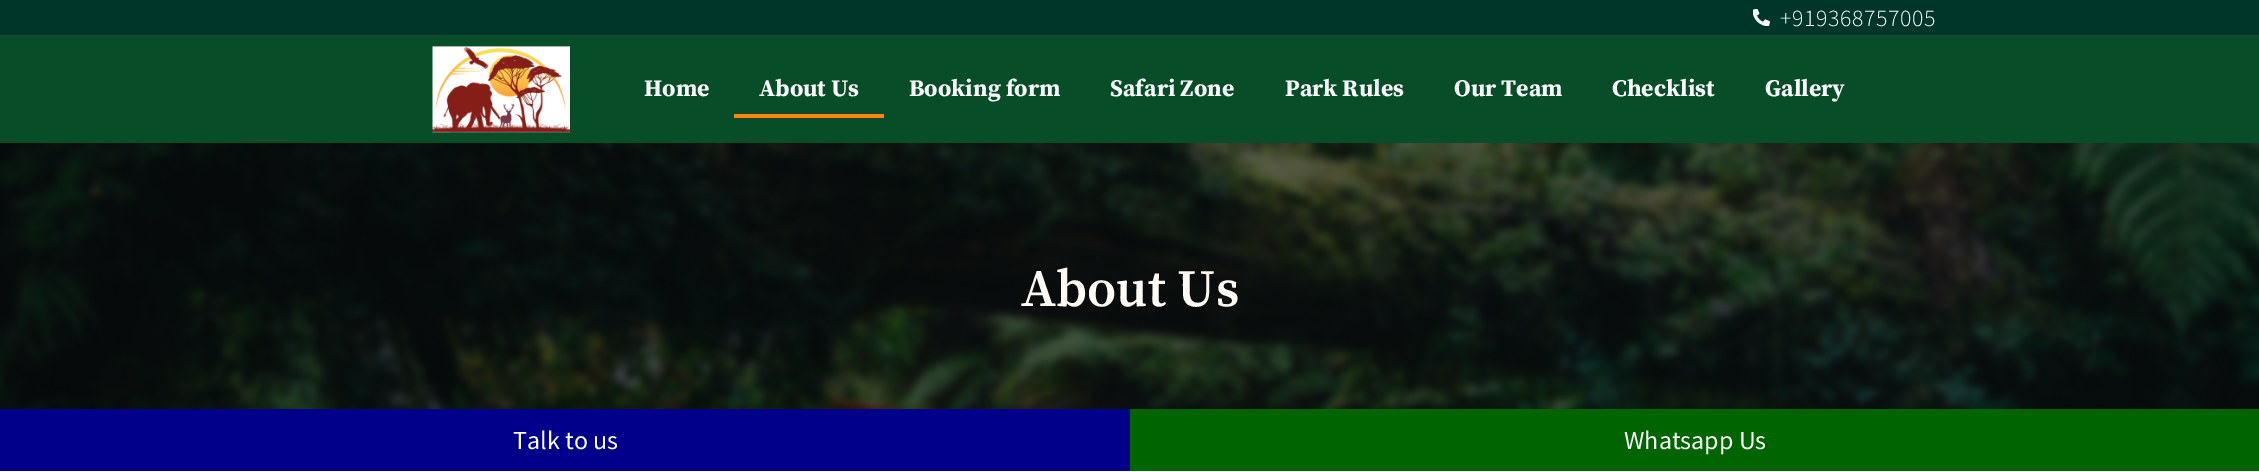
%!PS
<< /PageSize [2259 472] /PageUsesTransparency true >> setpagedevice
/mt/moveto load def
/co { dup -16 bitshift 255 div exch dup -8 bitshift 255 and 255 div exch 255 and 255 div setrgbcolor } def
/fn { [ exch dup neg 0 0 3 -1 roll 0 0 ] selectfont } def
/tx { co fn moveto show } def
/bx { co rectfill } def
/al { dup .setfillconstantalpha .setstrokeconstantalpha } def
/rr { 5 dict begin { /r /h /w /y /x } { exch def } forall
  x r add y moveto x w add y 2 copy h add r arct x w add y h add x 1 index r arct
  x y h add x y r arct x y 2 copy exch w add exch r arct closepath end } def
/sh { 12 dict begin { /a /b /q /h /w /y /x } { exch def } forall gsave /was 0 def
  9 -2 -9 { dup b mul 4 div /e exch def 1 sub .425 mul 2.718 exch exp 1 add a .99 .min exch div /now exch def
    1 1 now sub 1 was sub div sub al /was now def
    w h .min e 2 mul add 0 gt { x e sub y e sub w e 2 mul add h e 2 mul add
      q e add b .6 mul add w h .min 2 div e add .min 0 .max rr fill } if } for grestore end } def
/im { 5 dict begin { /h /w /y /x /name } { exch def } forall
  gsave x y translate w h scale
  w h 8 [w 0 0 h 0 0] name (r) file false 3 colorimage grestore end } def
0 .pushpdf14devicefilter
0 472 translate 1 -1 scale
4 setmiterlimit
0 0 2259 472 16#FFFFFF bx
0 0 2259 35 16#003629 bx
0 35 2259 1 16#14463A bx
(media/1.raw) 1753 9 17 17 im
0 36 2259 107 16#074D28 bx
(media/2.raw) 432 46 138 87 im
734 114 150 4 16#FF8315 bx
(media/3.raw) 0 143 2259 266 im
16#000000 co
0 405 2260 64 0 2 .12 sh
0 471 2259 1 16#FFFFFF bx
0 409 1130 62 16#00008B bx
1130 409 1129 62 16#006400 bx
/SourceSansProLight-Light 23.75 fn
16#FFFFFF co
1780 26 mt .6 0 (+919368757005) ashow
(Home) 644 96 /SourceSerifPro-Bold 23.75 16#FFFFFF tx
(About Us) 759 96 /SourceSerifPro-Bold 23.75 16#FFFFFF tx
(Booking form) 909 96 /SourceSerifPro-Bold 23.75 16#FFFFFF tx
(Safari Zone) 1110 96 /SourceSerifPro-Bold 23.75 16#FFFFFF tx
(Park Rules) 1285 96 /SourceSerifPro-Bold 23.75 16#FFFFFF tx
(Our Team) 1454 96 /SourceSerifPro-Bold 23.75 16#FFFFFF tx
(Checklist) 1612 96 /SourceSerifPro-Bold 23.75 16#FFFFFF tx
(Gallery) 1765 96 /SourceSerifPro-Bold 23.75 16#FFFFFF tx
(About Us) 1021 306 /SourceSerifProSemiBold-SemiBold 52.5 16#FFFAF4 tx
(Talk to us) 513 449 /SourceSansPro-Regular 26 16#FFFFFF tx
(Whatsapp Us) 1624 449 /SourceSansPro-Regular 26 16#FFFFFF tx
.poppdf14devicefilter showpage
